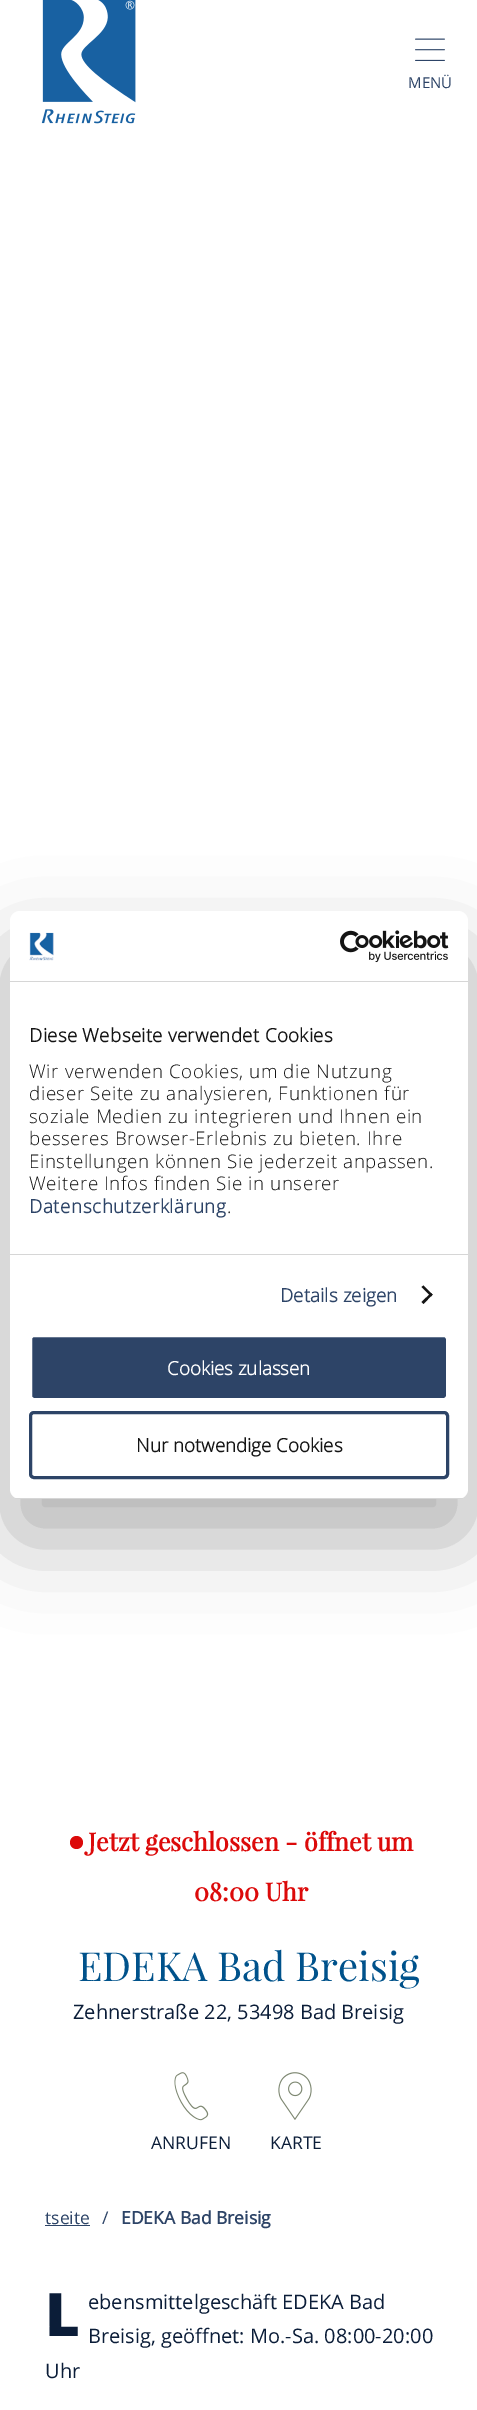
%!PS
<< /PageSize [477 2410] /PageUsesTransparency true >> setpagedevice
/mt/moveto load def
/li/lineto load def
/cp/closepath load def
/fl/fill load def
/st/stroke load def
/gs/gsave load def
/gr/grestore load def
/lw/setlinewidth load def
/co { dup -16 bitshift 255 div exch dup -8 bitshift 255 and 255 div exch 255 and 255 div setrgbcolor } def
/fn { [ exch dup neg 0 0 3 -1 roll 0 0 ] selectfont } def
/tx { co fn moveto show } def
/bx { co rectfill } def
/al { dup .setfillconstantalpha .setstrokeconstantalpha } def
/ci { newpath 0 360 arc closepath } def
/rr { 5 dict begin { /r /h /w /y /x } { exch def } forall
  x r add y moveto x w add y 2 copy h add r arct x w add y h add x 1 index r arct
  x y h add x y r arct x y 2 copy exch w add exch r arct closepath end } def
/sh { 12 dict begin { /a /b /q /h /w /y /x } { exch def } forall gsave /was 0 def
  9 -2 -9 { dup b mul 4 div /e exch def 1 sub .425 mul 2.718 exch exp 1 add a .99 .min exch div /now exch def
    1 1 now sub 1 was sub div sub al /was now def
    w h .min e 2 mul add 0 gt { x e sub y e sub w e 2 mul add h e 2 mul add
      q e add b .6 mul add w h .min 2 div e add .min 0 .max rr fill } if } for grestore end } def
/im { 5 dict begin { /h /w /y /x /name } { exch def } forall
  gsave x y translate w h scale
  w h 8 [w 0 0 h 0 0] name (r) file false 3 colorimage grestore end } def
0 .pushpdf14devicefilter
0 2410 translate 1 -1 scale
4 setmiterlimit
0 0 477 2410 16#FFFFFF bx
(media/1.raw) 41 0 95 124 im
(media/2.raw) 415 38 30 23 im
16#000000 co
10 951 458 588 10 42.5 .3 sh
16#FFFFFF co
10 911 458 588 10 rr fl
10 981 458 1 16#D6D6D6 bx
(media/3.raw) 29 932 25 29 im
(media/4.raw) 340 930 109 33 im
10 1254 458 1 16#D6D6D6 bx
16#141414 co
423.5 1285.5 mt 432.5 1294.5 li 431 1296.5 li 421.5 1287 li cp fl
431 1293 mt 432.5 1294.5 li 423.5 1304 li 421.5 1302 li cp fl
gs
10 911 458 588 10 rr clip newpath
10 1498 458 1 16#D6D6D6 bx
gr
16#2D4467 co
30.5 1335.5 417 64 3.5 rr gs fl gr
16#FFFFFF co
3 lw
st
16#2D4467 co
30.5 1412.5 417 65 3.5 rr st
16#DC0A0A co
76.5 1842.5 6.5 ci fl
(media/5.raw) 174 2072 35 49 im
(media/6.raw) 278 2072 34 48 im
45 2225 45 1 16#2D4467 bx
(MENÜ) 408 88 /OpenSans-Regular 15 16#2D4467 tx
/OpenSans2-Bold 18.75 fn
16#141414 co
29 1042 mt .3 0 (Diese Webseite verwendet Cookies) ashow
/OpenSans-Light 18.75 fn
29 1078 mt .6 0 (Wir verwenden Cookies, um die Nutzung) ashow
29 1100 mt .6 0 (dieser Seite zu analysieren, Funktionen für) ashow
29 1123 mt .6 0 (soziale Medien zu integrieren und Ihnen ein) ashow
29 1145 mt .6 0 (besseres Browser-Erlebnis zu bieten. Ihre) ashow
29 1168 mt .6 0 (Einstellungen können Sie jederzeit anpassen.) ashow
29 1190 mt .6 0 (Weitere Infos finden Sie in unserer) ashow
/OpenSans2-Bold 18.75 fn
16#2D4467 co
29 1213 mt .6 0 (Datenschutzerklärung) ashow
/OpenSans-Light 18.75 fn
16#141414 co
227 1213 mt .6 0 (.) ashow
/OpenSans2-Bold 18.75 fn
16#2D4467 co
280 1302 mt .1 0 (Details zeigen) ashow
(Cookies zulassen) 167 1375 /OpenSans2-Bold 18.75 16#FFFFFF tx
(Nur notwendige Cookies) 136 1452 /OpenSans2-Bold 18.75 16#141414 tx
(Jetzt geschlossen - öffnet um) 88 1851 /PlayfairDisplay-Bold 25 16#DC0A0A tx
(08:00 Uhr) 194 1901 /PlayfairDisplay-Bold 25 16#DC0A0A tx
(EDEKA Bad Breisig) 78 1981 /PlayfairDisplay-Regular 40 16#00528B tx
(Zehnerstraße 22, 53498 Bad Breisig) 73 2019 /OpenSans-Regular 20 16#0B1D38 tx
(ANRUFEN) 151 2149 /OpenSans-Regular 17.5 16#0B1D38 tx
(KARTE) 270 2149 /OpenSans-Regular 17.5 16#0B1D38 tx
(tseite) 45 2224 /OpenSans-Regular 17.5 16#2D4467 tx
(/) 102 2224 /OpenSans-Regular 17.5 16#2D4467 tx
(EDEKA Bad Breisig) 121 2224 /OpenSans-Bold 17.5 16#2D4467 tx
(ebensmittelgeschäft EDEKA Bad) 88 2309 /OpenSans-Regular 20 16#0B1D38 tx
(Breisig, geöffnet: Mo.-Sa. 08:00-20:00) 88 2343 /OpenSans-Regular 20 16#0B1D38 tx
(Uhr) 45 2378 /OpenSans-Regular 20 16#0B1D38 tx
(L) 45 2336 /NotoSans-Black 60 16#0B1D38 tx
.poppdf14devicefilter showpage
